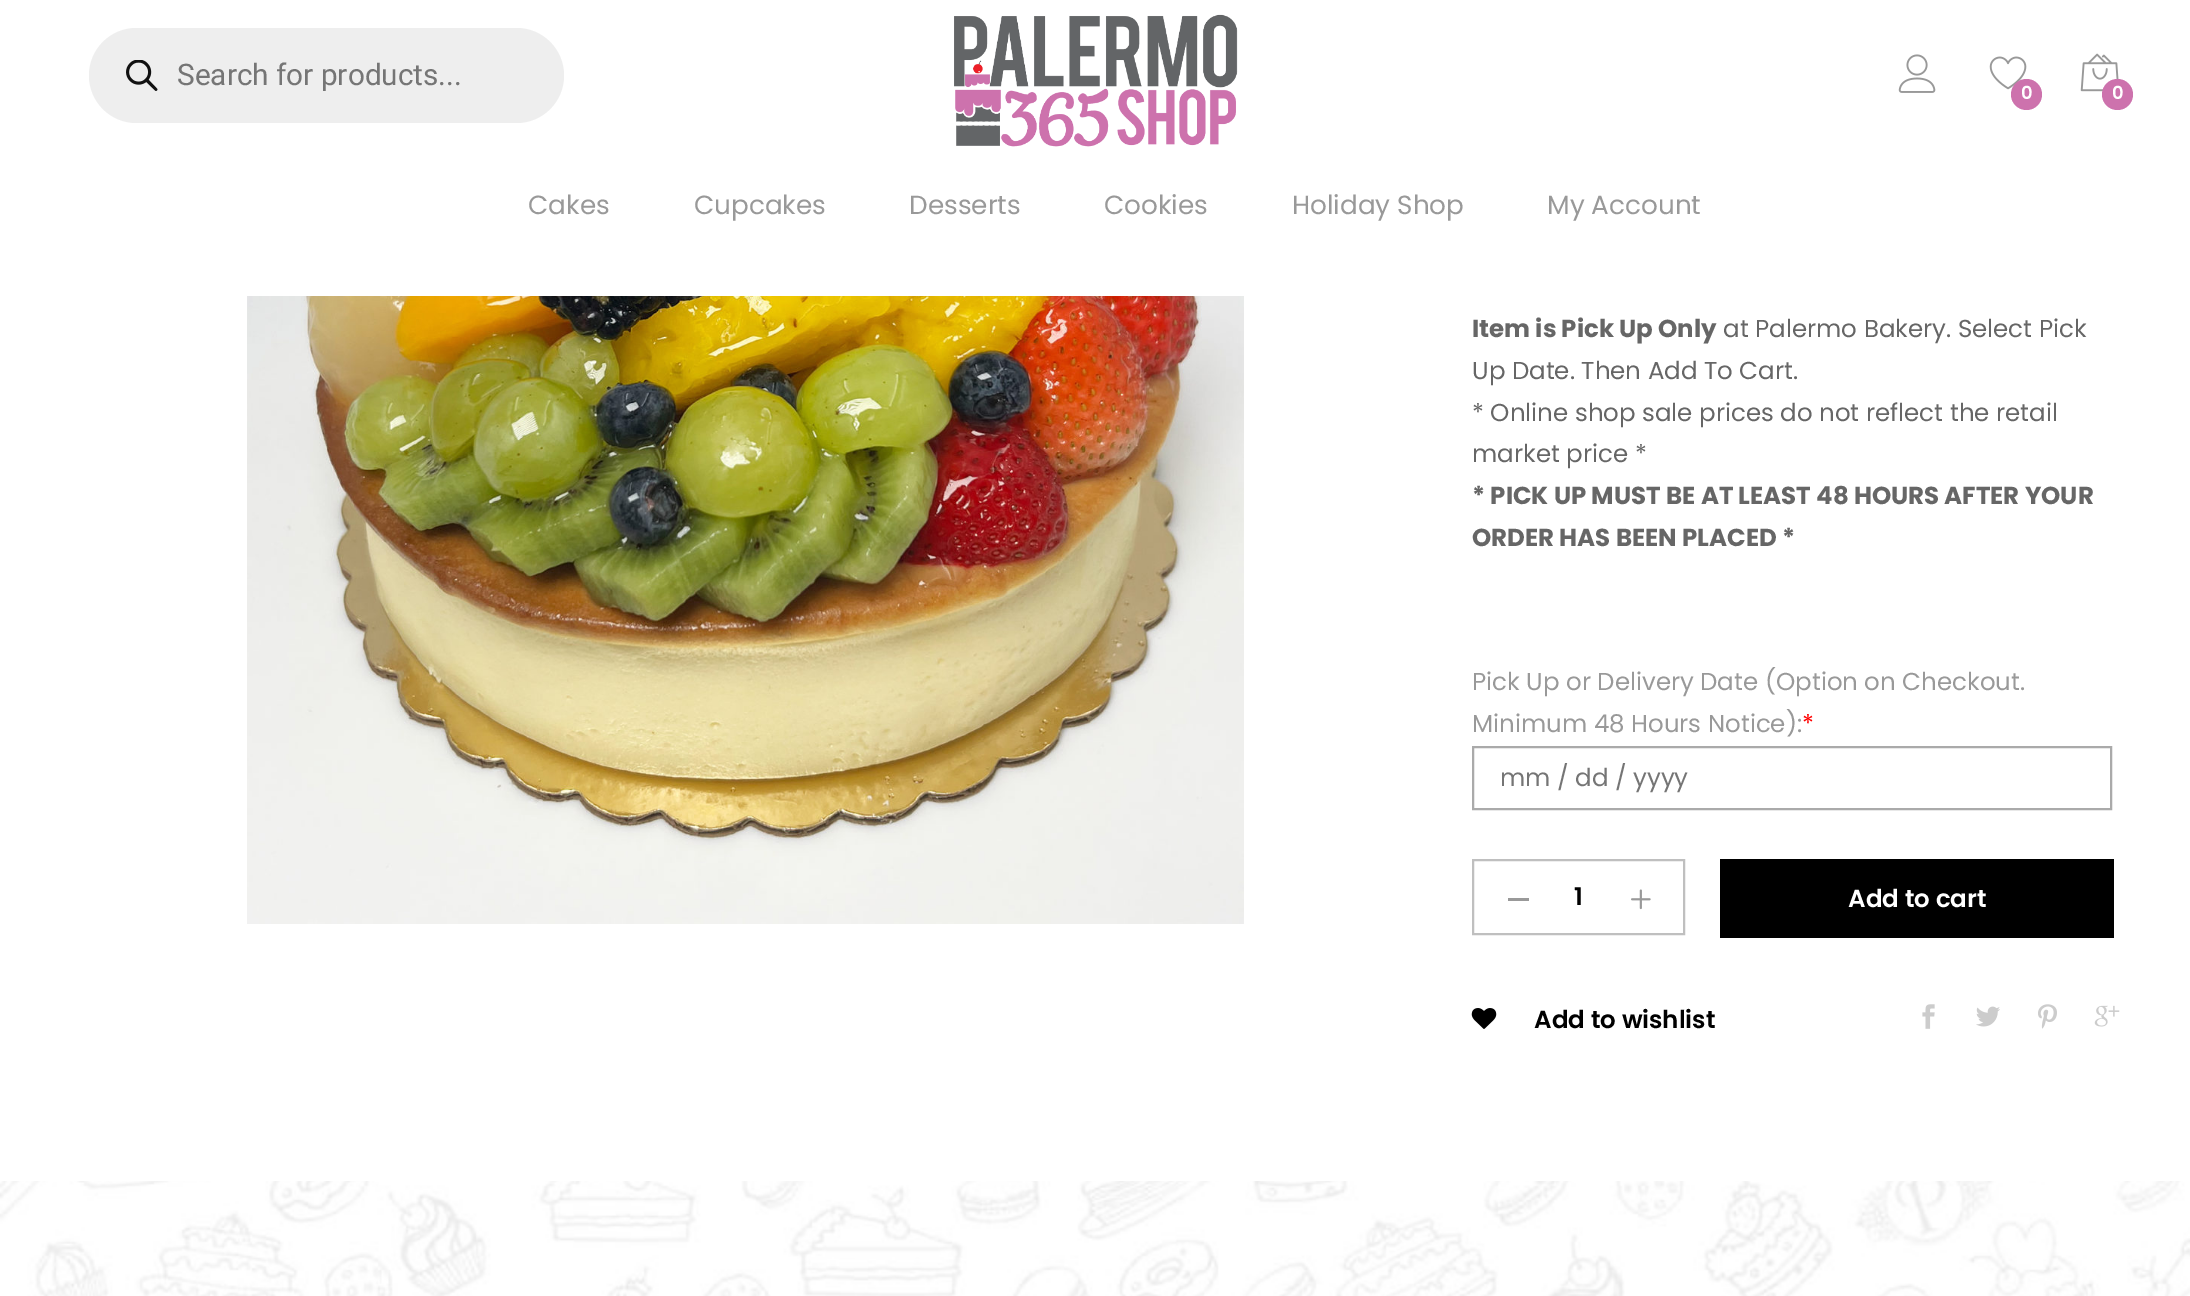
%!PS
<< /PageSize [2190 1296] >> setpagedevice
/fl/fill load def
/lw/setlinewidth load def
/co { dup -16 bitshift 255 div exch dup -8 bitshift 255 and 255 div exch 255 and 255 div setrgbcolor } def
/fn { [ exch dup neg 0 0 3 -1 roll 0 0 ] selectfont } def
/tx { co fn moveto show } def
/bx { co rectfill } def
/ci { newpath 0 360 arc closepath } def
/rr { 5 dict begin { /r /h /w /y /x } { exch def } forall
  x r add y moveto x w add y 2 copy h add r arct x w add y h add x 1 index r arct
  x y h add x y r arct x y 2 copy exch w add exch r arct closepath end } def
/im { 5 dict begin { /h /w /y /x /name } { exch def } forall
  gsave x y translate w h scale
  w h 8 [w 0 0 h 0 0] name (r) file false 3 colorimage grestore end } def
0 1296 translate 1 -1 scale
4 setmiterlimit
0 0 2190 1296 16#FFFFFF bx
16#EEEEEE co
89 28 475 95 47.5 rr fl
(media/1.raw) 126 60 32 31 im
(media/2.raw) 954 14 284 133 im
(media/3.raw) 1898 54 38 39 im
(media/4.raw) 1989 56 38 34 im
16#CD72AD co
2026.5 94.5 15.5 ci fl
(media/5.raw) 2080 53 39 39 im
2117.5 94.5 15.5 ci fl
(media/6.raw) 0 1181 2190 115 im
(media/7.raw) 247 296 997 628 im
16#AAAAAA co
2 lw
1473 747 638 62 rectstroke
16#BFBFBF co
1473 860 211 74 rectstroke
1508 898 21 3 16#999999 bx
(media/8.raw) 1631 889 20 21 im
1720 859 394 79 16#000000 bx
(media/9.raw) 1471 1008 26 21 im
(media/10.raw) 1922 1004 13 25 im
(media/11.raw) 1976 1006 24 21 im
(media/12.raw) 2038 1004 19 25 im
(media/13.raw) 2094 1005 26 22 im
(Search for products...) 177 85 /Roboto-Regular 29.75 16#757575 tx
(0) 2021 99 /Poppins-SemiBold 18 16#FFFFFF tx
(0) 2112 99 /Poppins-SemiBold 18 16#FFFFFF tx
(Cakes) 528 214 /Poppins-Regular 26.25 16#999999 tx
(Cupcakes) 694 214 /Poppins-Regular 26.25 16#999999 tx
(Desserts) 909 214 /Poppins-Regular 26.25 16#999999 tx
(Cookies) 1104 214 /Poppins-Regular 26.25 16#999999 tx
(Holiday Shop) 1292 214 /Poppins-Regular 26.25 16#999999 tx
(My Account) 1547 214 /Poppins-Regular 26.25 16#999999 tx
(Item is Pick Up Only) 1472 337 /Poppins-Bold 24.5 16#666666 tx
(at Palermo Bakery. Select Pick) 1723 337 /Poppins-Regular 24.5 16#666666 tx
(Up Date. Then Add To Cart.) 1472 379 /Poppins-Regular 24.5 16#666666 tx
(* Online shop sale prices do not reflect the retail) 1472 421 /Poppins-Regular 24.5 16#666666 tx
(market price *) 1472 462 /Poppins-Regular 24.5 16#666666 tx
(* PICK UP MUST BE AT LEAST 48 HOURS AFTER YOUR) 1472 504 /Poppins-Bold 24.5 16#666666 tx
(ORDER HAS BEEN PLACED *) 1472 546 /Poppins-Bold 24.5 16#666666 tx
(Pick Up or Delivery Date \(Option on Checkout.) 1472 690 /Poppins-Regular 24.5 16#999999 tx
(Minimum 48 Hours Notice\):) 1472 732 /Poppins-Regular 24.5 16#999999 tx
(*) 1802 732 /Poppins-Regular 24.5 16#FF0000 tx
(mm / dd / yyyy) 1500 786 /Poppins-Regular 24.5 16#757575 tx
(1) 1574 905 /Poppins-SemiBold 24.5 16#000000 tx
(Add to cart) 1848 907 /Poppins-SemiBold 24.5 16#FFFFFF tx
(Add to wishlist) 1534 1028 /Poppins-SemiBold 24.5 16#000000 tx
showpage
